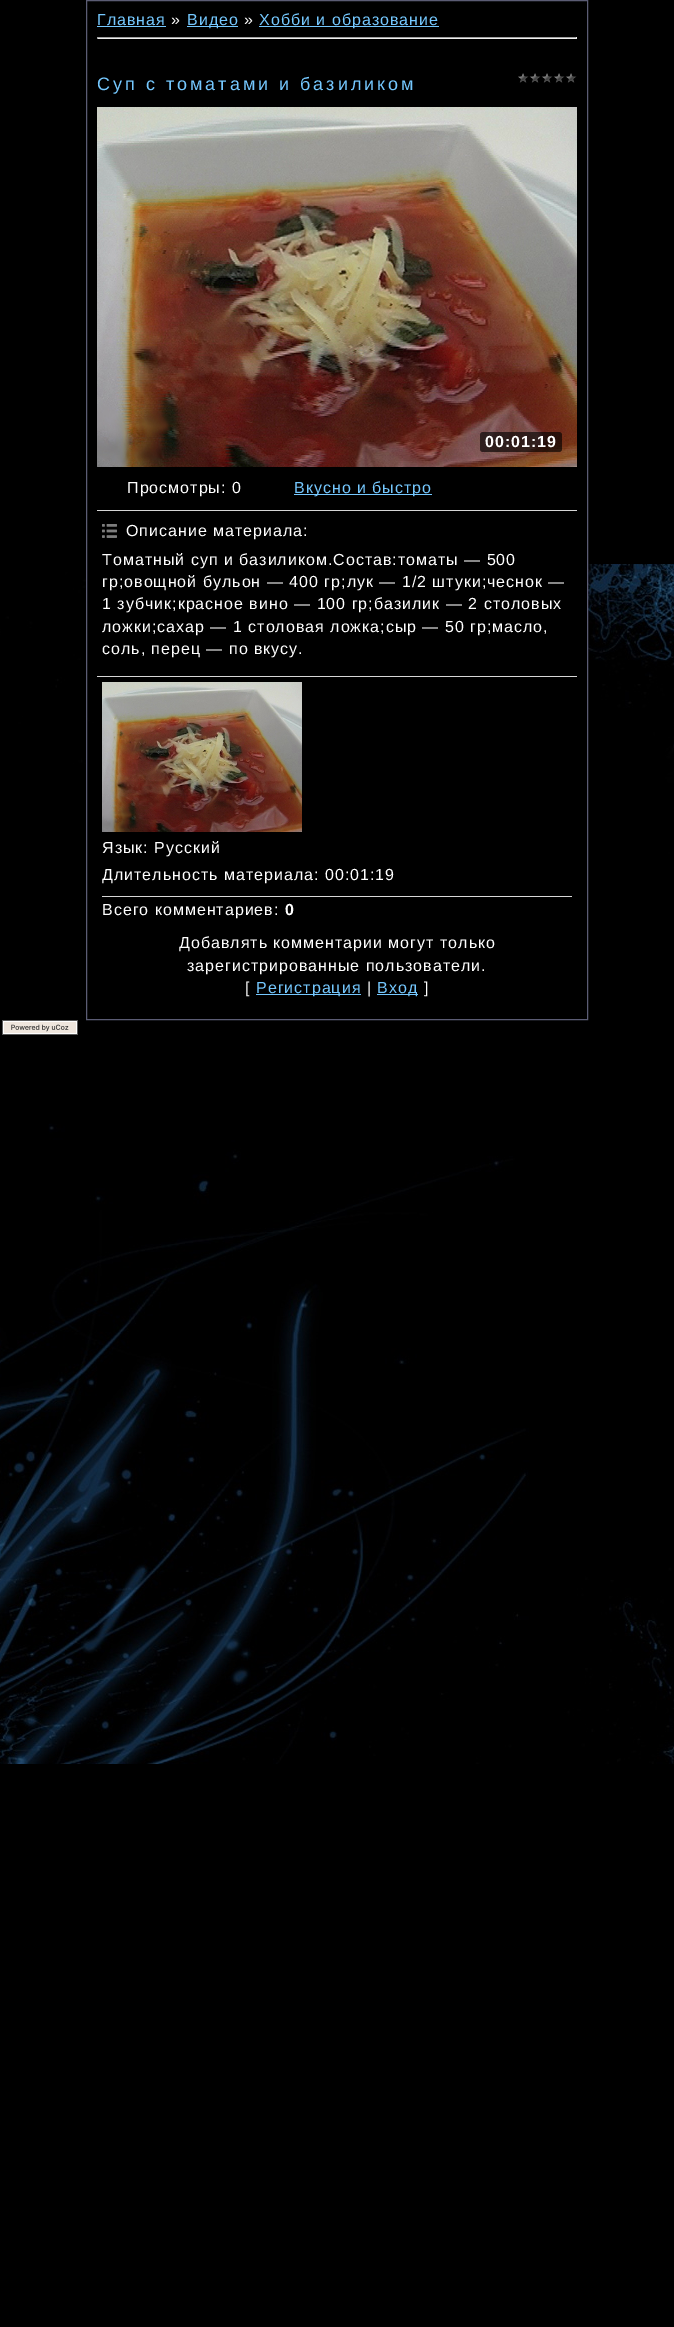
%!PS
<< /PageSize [674 2327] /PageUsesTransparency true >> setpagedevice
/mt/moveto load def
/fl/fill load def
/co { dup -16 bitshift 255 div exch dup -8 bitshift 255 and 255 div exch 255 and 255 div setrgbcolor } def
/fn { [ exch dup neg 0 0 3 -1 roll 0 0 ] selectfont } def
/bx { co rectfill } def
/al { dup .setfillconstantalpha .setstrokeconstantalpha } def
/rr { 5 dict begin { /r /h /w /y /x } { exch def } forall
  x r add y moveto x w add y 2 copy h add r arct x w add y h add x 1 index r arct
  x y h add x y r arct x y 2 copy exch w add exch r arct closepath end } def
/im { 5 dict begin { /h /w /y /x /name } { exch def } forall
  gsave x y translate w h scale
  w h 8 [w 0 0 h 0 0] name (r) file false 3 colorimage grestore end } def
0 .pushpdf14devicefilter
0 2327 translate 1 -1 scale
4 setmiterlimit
0 0 674 2327 16#000000 bx
(media/1.raw) 0 564 674 1200 im
16#5B5C74 co
86.5 .5 501 1019 rectstroke
88 564 499 156 16#000000 bx
97 26 69 1 16#75C8FF bx
187 26 51 1 16#75C8FF bx
259 26 180 1 16#75C8FF bx
97 37 480 1 16#9F9F9F bx
576 37 1 2 16#EEEEEE bx
97 38 480 1 16#EEEEEE bx
97 37 1 2 16#9F9F9F bx
(media/2.raw) 518 73 59 10 im
(media/3.raw) 97 107 480 360 im
0.63 al
16#000000 co
480 432 82 20 3 rr fl
1 al
294 494 138 1 16#75C8FF bx
97 510 480 1 16#D6D6D6 bx
(media/4.raw) 102 524 15 14 im
97 676 480 1 16#D6D6D6 bx
(media/5.raw) 102 682 200 150 im
102 896 470 1 16#D6D6D6 bx
256 994 105 1 16#75C8FF bx
377 994 41 1 16#75C8FF bx
(media/6.raw) 2 1020 76 15 im
/LiberationSans-Regular 16 fn
97 25 mt 1 0 (Главная) ashow
16#FFFFFF co
171 25 mt 1 0 (») ashow
16#75C8FF co
187 25 mt 1 0 (Видео) ashow
16#FFFFFF co
244 25 mt 1 0 (») ashow
16#75C8FF co
259 25 mt 1 0 (Хобби и образование) ashow
/LiberationSans-Regular 18 fn
97 90 mt 3 0 (Суп с томатами и базиликом) ashow
/LiberationSans-Bold 16 fn
16#FFFFFF co
485 447 mt 1 0 (00:01:19) ashow
/LiberationSans-Regular 16 fn
127 493 mt 1 0 (Просмотры: 0) ashow
16#75C8FF co
294 493 mt 1 0 (Вкусно и быстро) ashow
16#FFFFFF co
126 536 mt 1 0 (Описание материала:) ashow
102 565 mt 1 0 (Томатный суп и базиликом.Состав:томаты — 500) ashow
102 587 mt 1 0 (гр;овощной бульон — 400 гр;лук — 1/2 штуки;чеснок —) ashow
102 609 mt 1 0 (1 зубчик;красное вино — 100 гр;базилик — 2 столовых) ashow
102 632 mt 1 0 (ложки;сахар — 1 столовая ложка;сыр — 50 гр;масло,) ashow
102 654 mt 1 0 (соль, перец — по вкусу.) ashow
102 853 mt 1 0 (Язык: Русский) ashow
102 880 mt 1 0 (Длительность материала: 00:01:19) ashow
102 915 mt 1 0 (Всего комментариев:) ashow
/LiberationSans-Bold 16 fn
285 915 mt 1 0 (0) ashow
/LiberationSans-Regular 16 fn
179 948 mt 1 0 (Добавлять комментарии могут только) ashow
187 971 mt 1 0 (зарегистрированные пользователи.) ashow
245 993 mt 1 0 ([) ashow
16#75C8FF co
256 993 mt 1 0 (Регистрация) ashow
16#FFFFFF co
367 993 mt 1 0 (|) ashow
16#75C8FF co
377 993 mt 1 0 (Вход) ashow
16#FFFFFF co
424 993 mt 1 0 (]) ashow
.poppdf14devicefilter showpage
